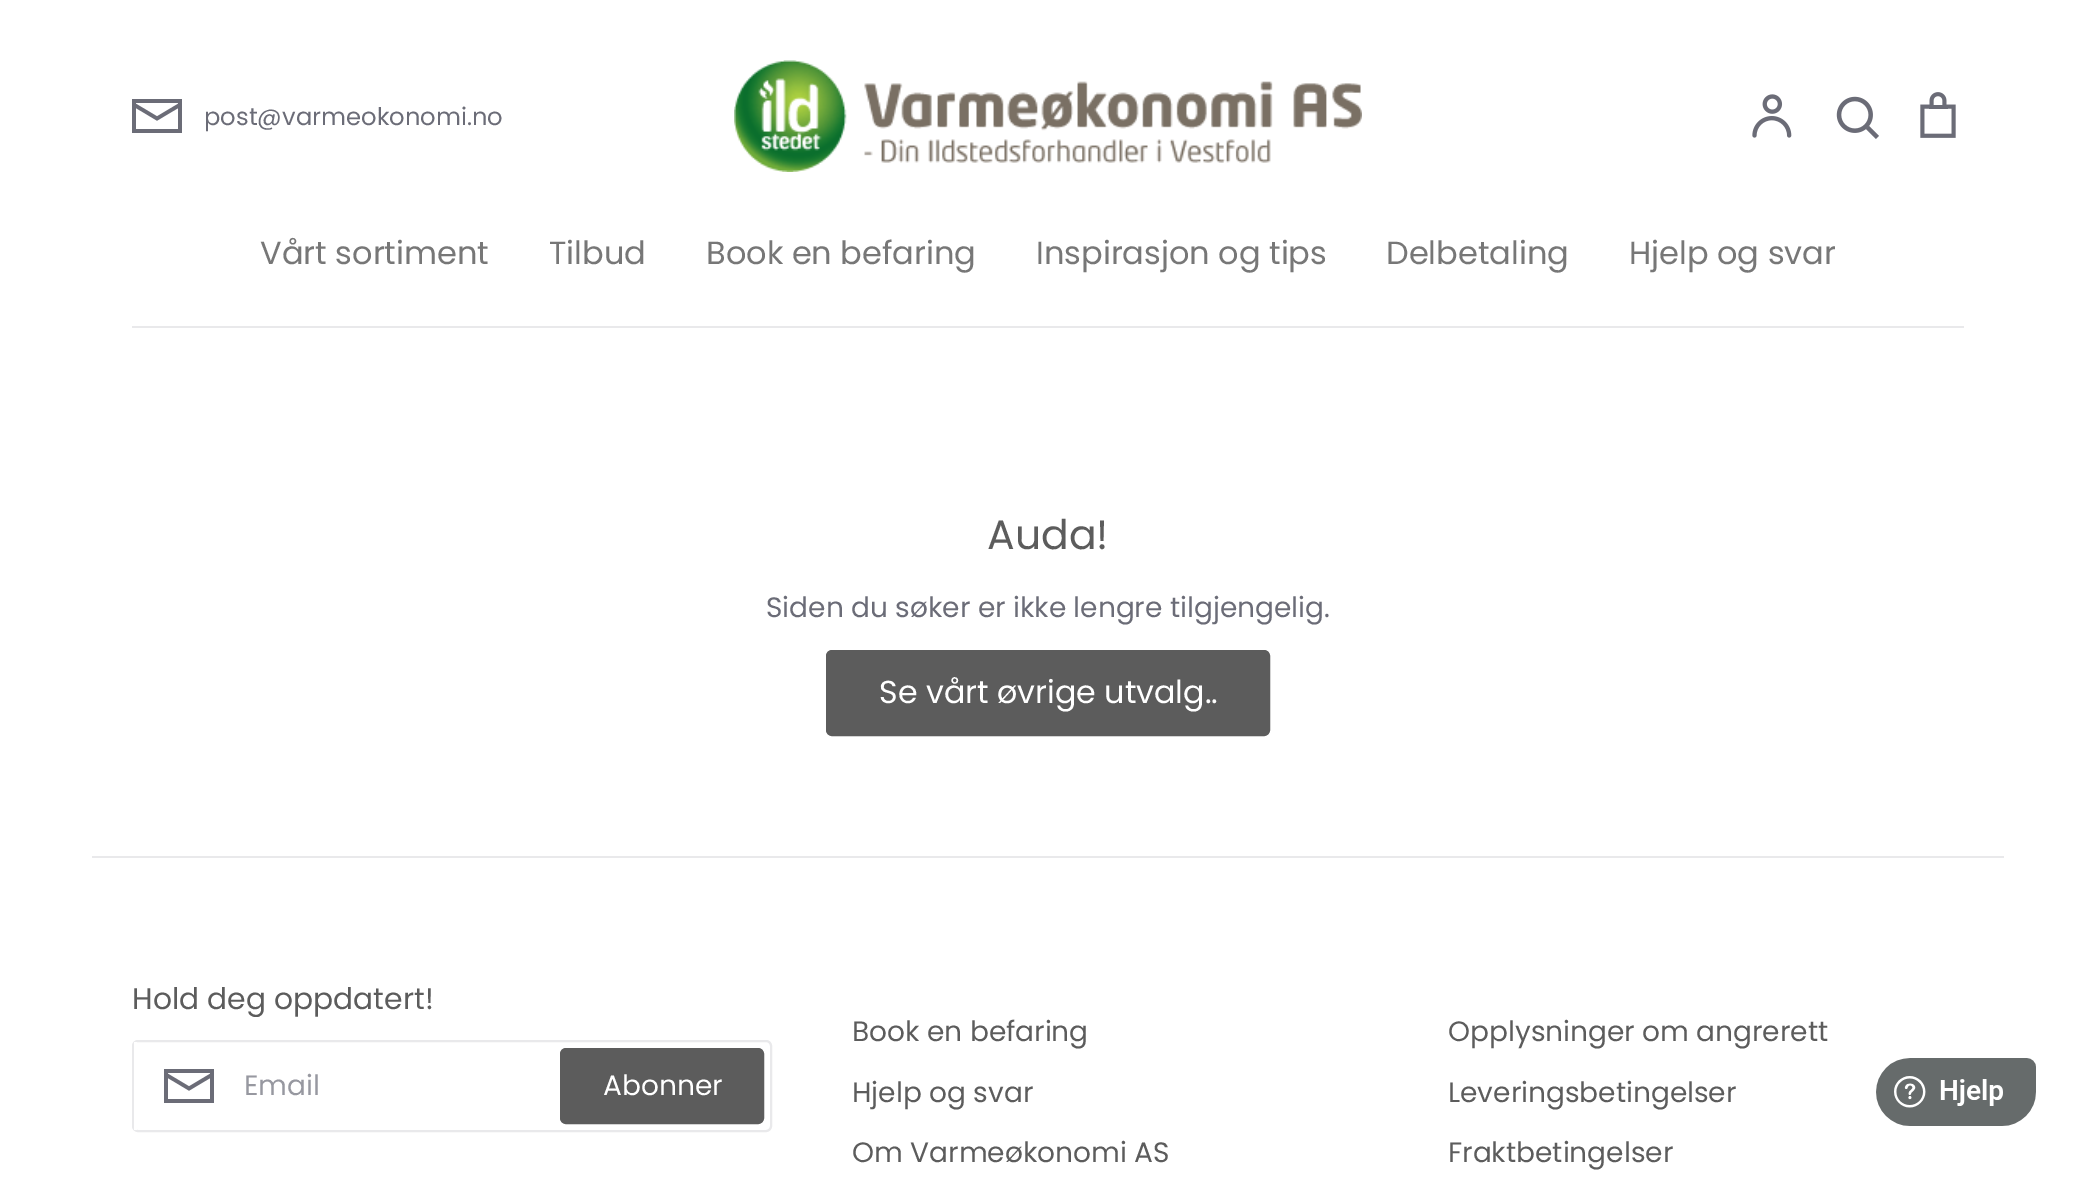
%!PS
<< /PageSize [2095 1198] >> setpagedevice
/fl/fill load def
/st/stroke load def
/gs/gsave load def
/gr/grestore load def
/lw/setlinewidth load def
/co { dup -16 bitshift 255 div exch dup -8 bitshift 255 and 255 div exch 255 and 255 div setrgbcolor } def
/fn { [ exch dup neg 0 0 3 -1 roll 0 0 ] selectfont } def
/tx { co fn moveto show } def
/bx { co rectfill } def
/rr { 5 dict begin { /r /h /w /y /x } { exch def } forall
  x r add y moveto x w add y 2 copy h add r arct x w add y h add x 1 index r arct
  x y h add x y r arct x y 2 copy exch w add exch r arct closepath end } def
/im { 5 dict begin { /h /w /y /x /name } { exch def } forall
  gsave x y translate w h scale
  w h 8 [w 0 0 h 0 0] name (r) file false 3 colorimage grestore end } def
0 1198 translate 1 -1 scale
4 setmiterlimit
0 0 2095 1198 16#FFFFFF bx
(media/1.raw) 132 99 50 34 im
(media/2.raw) 734 60 628 112 im
(media/3.raw) 1752 94 40 44 im
(media/4.raw) 1836 96 43 43 im
(media/5.raw) 1920 92 36 46 im
132 326 1832 2 16#E9E9EB bx
16#5C5C5C co
827 651 442 84 5 rr gs fl gr
2 lw
st
92 856 1912 2 16#E9E9EB bx
133 1041 638 90 5 rr st
(media/1.raw) 164 1069 50 34 im
134 1042 3 88 16#FFFFFF bx
16#5C5C5C co
561 1049 202 74 5 rr gs fl gr
st
(media/6.raw) 1876 1058 160 68 im
(post@varmeokonomi.no) 204 125 /Poppins-Regular 24.25 16#6B6C77 tx
(Vårt sortiment) 260 264 /Poppins-Regular 32 16#777777 tx
(Tilbud) 549 264 /Poppins-Regular 32 16#777777 tx
(Book en befaring) 706 264 /Poppins-Regular 32 16#777777 tx
(Inspirasjon og tips) 1036 264 /Poppins-Regular 32 16#777777 tx
(Delbetaling) 1386 264 /Poppins-Regular 32 16#777777 tx
(Hjelp og svar) 1629 264 /Poppins-Regular 32 16#777777 tx
(Auda!) 987 549 /Poppins-Regular 41 16#5C5C5C tx
(Siden du søker er ikke lengre tilgjengelig.) 766 617 /Poppins-Regular 28 16#6B6C77 tx
(Se vårt øvrige utvalg..) 879 703 /Poppins-Regular 31.75 16#FFFFFF tx
(Hold deg oppdatert!) 132 1009 /Poppins-Regular 29.8 16#5C5C5C tx
(Email) 244 1095 /Poppins-Regular 28 16#9798A0 tx
(Abonner) 603 1095 /Poppins-Regular 28 16#FFFFFF tx
(Book en befaring) 852 1041 /Poppins-Regular 28 16#5C5C5C tx
(Hjelp og svar) 852 1102 /Poppins-Regular 28 16#5C5C5C tx
(Om Varmeøkonomi AS) 852 1162 /Poppins-Regular 28 16#5C5C5C tx
(Opplysninger om angrerett) 1448 1041 /Poppins-Regular 28 16#5C5C5C tx
(Leveringsbetingelser) 1448 1102 /Poppins-Regular 28 16#5C5C5C tx
(Fraktbetingelser) 1448 1162 /Poppins-Regular 28 16#5C5C5C tx
showpage
